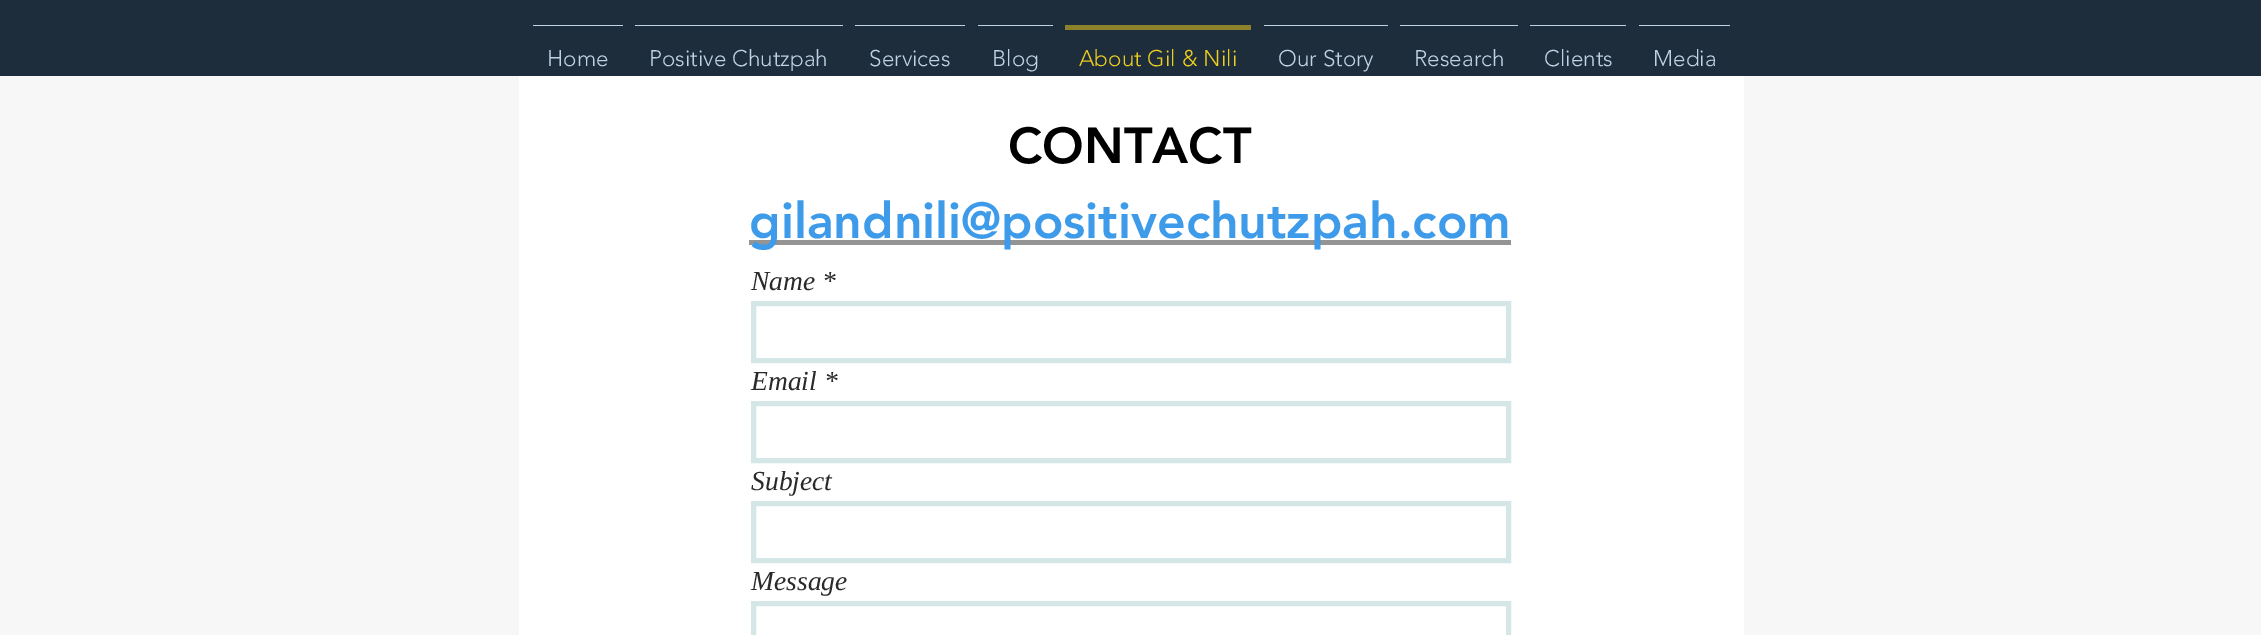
%!PS
<< /PageSize [2261 635] >> setpagedevice
/lw/setlinewidth load def
/co { dup -16 bitshift 255 div exch dup -8 bitshift 255 and 255 div exch 255 and 255 div setrgbcolor } def
/fn { [ exch dup neg 0 0 3 -1 roll 0 0 ] selectfont } def
/tx { co fn moveto show } def
/bx { co rectfill } def
0 635 translate 1 -1 scale
4 setmiterlimit
0 0 2261 635 16#F7F7F7 bx
0 0 2261 76 16#1E2D3B bx
533 25 90 1 16#C0D2E5 bx
635 25 208 1 16#C0D2E5 bx
855 25 110 1 16#C0D2E5 bx
978 25 75 1 16#C0D2E5 bx
1065 25 186 5 16#8C822C bx
1264 25 124 1 16#C0D2E5 bx
1400 25 118 1 16#C0D2E5 bx
1530 25 96 1 16#C0D2E5 bx
1639 25 91 1 16#C0D2E5 bx
519 76 1225 559 16#FFFFFF bx
749 240 762 5 16#949494 bx
16#D4E6E6 co
5 lw
753.5 303.5 755 57 rectstroke
753.5 403.5 755 57 rectstroke
753.5 503.5 755 57 rectstroke
753.5 603.5 755 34 rectstroke
(Home) 547 66 /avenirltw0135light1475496-Light 22.5 16#C0D2E5 tx
(Positive Chutzpah) 649 66 /avenirltw0135light1475496-Light 22.5 16#C0D2E5 tx
(Services) 869 66 /avenirltw0135light1475496-Light 22.5 16#C0D2E5 tx
(Blog) 992 66 /avenirltw0135light1475496-Light 22.5 16#C0D2E5 tx
(About Gil & Nili) 1079 66 /avenirltw0135light1475496-Light 22.5 16#EDCD1F tx
(Our Story) 1278 66 /avenirltw0135light1475496-Light 22.5 16#C0D2E5 tx
(Research) 1414 66 /avenirltw0135light1475496-Light 22.5 16#C0D2E5 tx
(Clients) 1544 66 /avenirltw0135light1475496-Light 22.5 16#C0D2E5 tx
(Media) 1653 66 /avenirltw0135light1475496-Light 22.5 16#C0D2E5 tx
(CONTACT) 1008 163 /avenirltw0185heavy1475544-Black 50 16#000000 tx
(gilandnili@positivechutzpah.com) 749 238 /avenirltw0185heavy1475544-Black 50 16#3D9BE9 tx
(Name *) 751 290 /LiberationSerif-Italic 27.5 16#2A2A2A tx
(Email *) 751 390 /LiberationSerif-Italic 27.5 16#2A2A2A tx
(Subject) 751 490 /LiberationSerif-Italic 27.5 16#2A2A2A tx
(Message) 751 590 /LiberationSerif-Italic 27.5 16#2A2A2A tx
showpage
